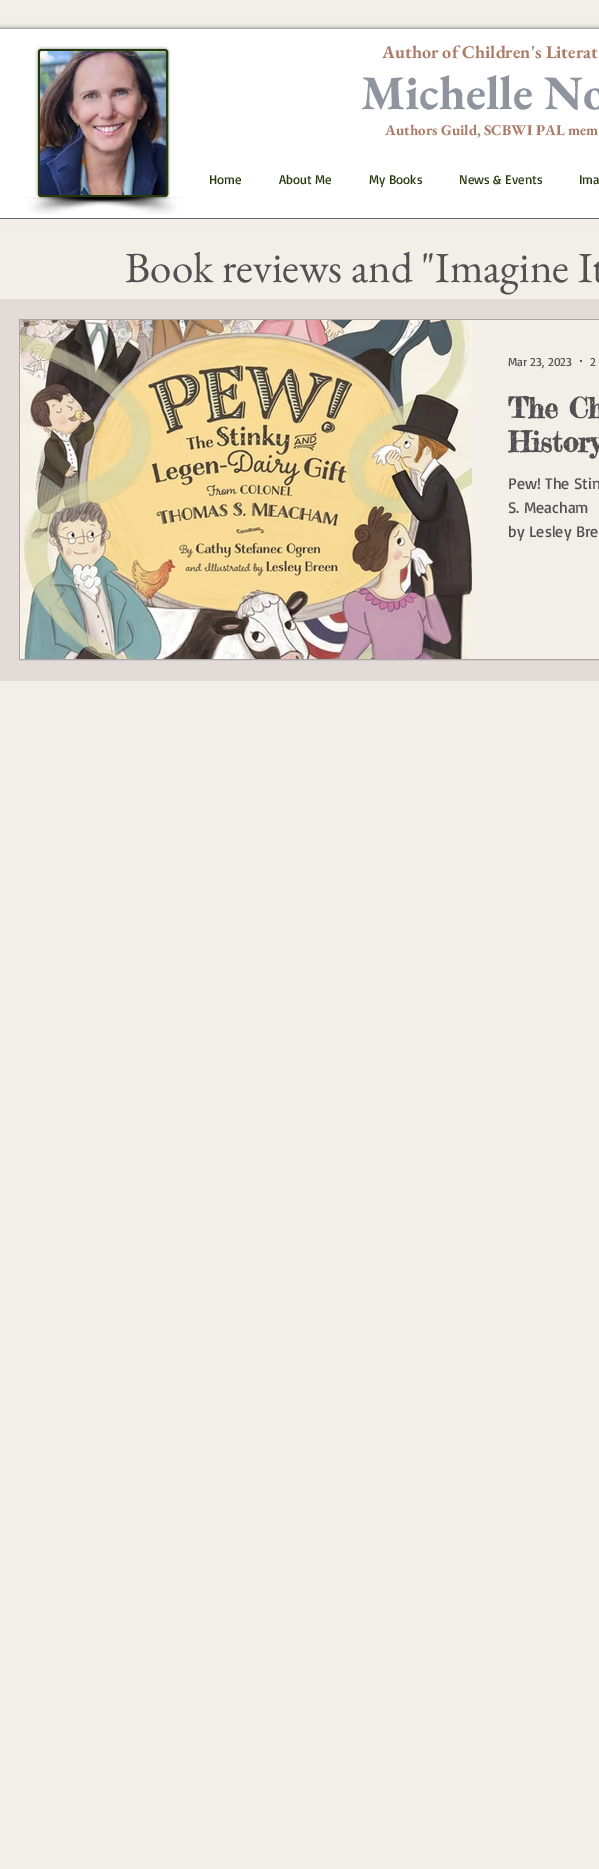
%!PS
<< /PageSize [599 1869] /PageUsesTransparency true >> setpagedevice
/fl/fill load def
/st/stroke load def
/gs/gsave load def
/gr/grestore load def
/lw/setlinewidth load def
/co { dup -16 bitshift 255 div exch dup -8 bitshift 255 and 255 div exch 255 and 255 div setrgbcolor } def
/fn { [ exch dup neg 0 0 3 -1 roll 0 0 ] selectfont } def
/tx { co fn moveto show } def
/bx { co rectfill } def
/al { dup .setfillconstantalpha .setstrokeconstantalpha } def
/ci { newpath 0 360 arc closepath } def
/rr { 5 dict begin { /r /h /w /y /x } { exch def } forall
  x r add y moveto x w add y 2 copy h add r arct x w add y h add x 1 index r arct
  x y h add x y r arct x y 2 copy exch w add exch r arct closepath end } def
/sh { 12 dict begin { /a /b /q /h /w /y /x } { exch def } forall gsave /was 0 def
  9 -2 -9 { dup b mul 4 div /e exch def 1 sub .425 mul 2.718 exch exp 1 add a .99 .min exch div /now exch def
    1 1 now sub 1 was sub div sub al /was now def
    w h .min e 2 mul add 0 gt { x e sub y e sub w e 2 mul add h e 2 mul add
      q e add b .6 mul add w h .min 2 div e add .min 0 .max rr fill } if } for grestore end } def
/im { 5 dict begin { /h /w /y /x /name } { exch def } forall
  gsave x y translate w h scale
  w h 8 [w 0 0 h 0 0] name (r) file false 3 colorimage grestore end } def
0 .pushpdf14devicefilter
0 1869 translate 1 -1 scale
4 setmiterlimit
0 0 599 1869 16#F2EFE9 bx
16#000000 co
0 29 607 190 0 2.5 .6 sh
0 29 599 189 16#FFFFFF bx
0 218 599 1 16#666666 bx
16#000000 co
38 49 130 148 3 1.5 .5 sh
16#26390D co
39 50 128 146 2 rr gs fl gr
2 lw
st
(media/1.raw) 40 51 126 144 im
(media/3.raw) 29 197 154 18 im
(media/2.raw) 23 197 154 18 im
0 299 599 382 16#E3DBD8 bx
0 219 599 5 16#F2EFE9 bx
16#A9A4A5 co
1 lw
19.5 319.5 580 340 rectstroke
(media/4.raw) 20 320 452 339 im
472 320 127 339 16#F2EFE9 bx
16#534F52 co
581 361 1 ci fl
(Author of Children's Literat) 382 58 /EBGaramond-Bold 18 16#AB7C69 tx
(Michelle No) 361 109 /EBGaramond-Bold 48 16#8F949F tx
(Authors Guild, SCBWI PAL mem) 385 135 /EBGaramond-Bold 15 16#AB7C69 tx
(Home) 209 184 /Basic-Regular 13 16#26390D tx
(About Me) 279 184 /Basic-Regular 13 16#26390D tx
(My Books) 369 184 /Basic-Regular 13 16#26390D tx
(News & Events) 459 184 /Basic-Regular 13 16#26390D tx
(Ima) 579 184 /Basic-Regular 13 16#26390D tx
(Book reviews and "Imagine It) 125 282 /EBGaramond-Regular 43 16#534F52 tx
(Mar 23, 2023) 508 366 /Basic-Regular 12 16#534F52 tx
(2) 590 366 /Basic-Regular 12 16#534F52 tx
(The Ch) 508 418 /FrederickatheGreat-Bold 28 16#534F52 tx
gs
508 391 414 68 rectclip
(History) 508 452 /FrederickatheGreat-Bold 28 16#534F52 tx
gr
(Pew! The Stin) 508 489 /Basic-Regular 16 16#534F52 tx
(S. Meacham) 508 513 /Basic-Regular 16 16#534F52 tx
(by Lesley Bre) 508 537 /Basic-Regular 16 16#534F52 tx
.poppdf14devicefilter showpage
